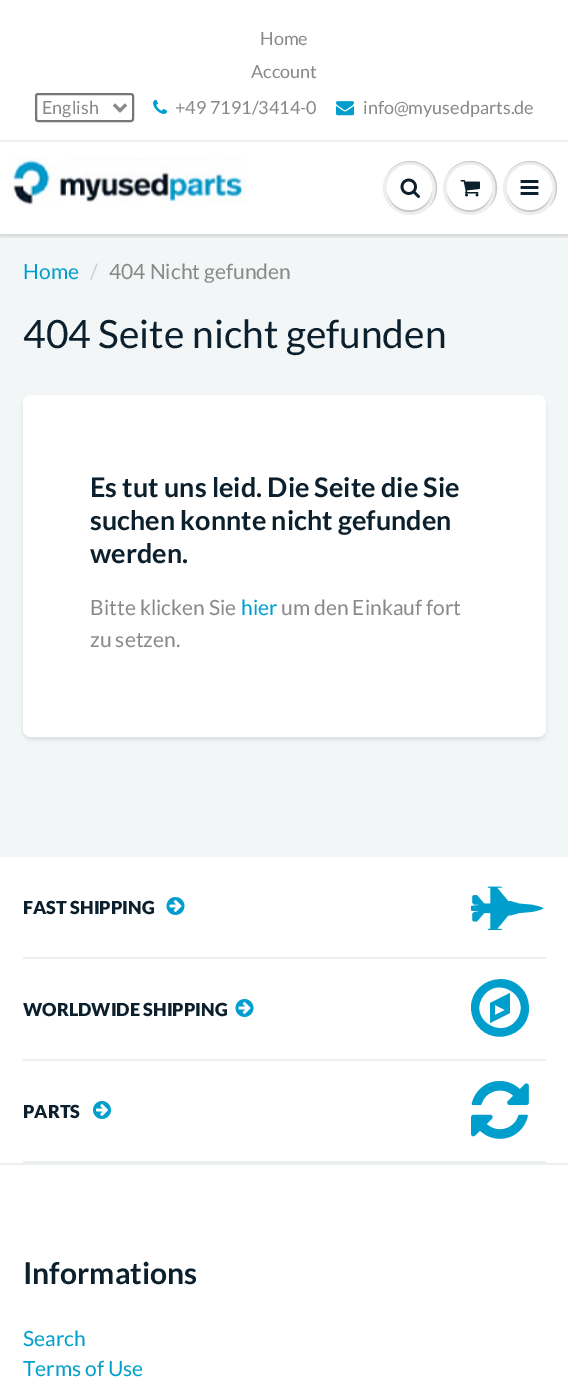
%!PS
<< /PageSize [568 1389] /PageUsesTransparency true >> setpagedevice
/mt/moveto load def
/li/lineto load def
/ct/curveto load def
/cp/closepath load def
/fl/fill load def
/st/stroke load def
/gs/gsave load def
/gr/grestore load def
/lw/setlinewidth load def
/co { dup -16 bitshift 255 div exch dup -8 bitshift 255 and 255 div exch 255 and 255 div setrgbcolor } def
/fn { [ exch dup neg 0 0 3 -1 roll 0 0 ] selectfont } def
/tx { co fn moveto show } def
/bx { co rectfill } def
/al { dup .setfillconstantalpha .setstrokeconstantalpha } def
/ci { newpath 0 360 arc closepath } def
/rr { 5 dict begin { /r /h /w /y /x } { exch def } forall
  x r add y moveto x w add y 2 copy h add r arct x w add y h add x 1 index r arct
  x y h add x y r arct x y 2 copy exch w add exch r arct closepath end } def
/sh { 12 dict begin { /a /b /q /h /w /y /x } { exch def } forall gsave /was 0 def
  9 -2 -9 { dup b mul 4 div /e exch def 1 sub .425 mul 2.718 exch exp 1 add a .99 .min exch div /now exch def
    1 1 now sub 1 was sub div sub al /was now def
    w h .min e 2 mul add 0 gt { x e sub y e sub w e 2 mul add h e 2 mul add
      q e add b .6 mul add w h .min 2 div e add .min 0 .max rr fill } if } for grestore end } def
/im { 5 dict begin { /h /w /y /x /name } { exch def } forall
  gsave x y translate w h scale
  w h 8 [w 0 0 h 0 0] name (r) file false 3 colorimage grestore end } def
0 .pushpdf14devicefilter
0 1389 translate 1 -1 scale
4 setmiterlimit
0 0 568 1389 16#FFFFFF bx
16#767676 co
2 lw
36 94 97 27 2 rr st
16#898989 co
3 lw
114 104.5 mt 120 110.5 li 126 104.5 li st
(media/1.raw) 153 99 15 15 im
(media/2.raw) 336 101 18 15 im
0 234 568 623 16#F3F6F6 bx
gs
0 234 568 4 rectclip
16#0B191C co
0 143 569 94 0 1.5 .12 sh
gr
0 140 568 2 16#ECEFEF bx
(media/3.raw) 9 158 237 47 im
16#EDEFEF co
410 188 27 ci fl
16#C9CBCB co
410 162 mt 433 162 443 189 430 206 ct 441 194 439 175 425 166 ct 413 157 396 161 388 173 ct 393 166 401 162 410 162 ct cp fl
432 189 mt 431 217 388 217 387 189 ct 387 193 388 198 391 202 ct 403 221 433 211 432 189 ct cp fl
16#FFFFFF co
409.5 187.5 22.5 ci fl
410 166 mt 426 166 433 179 432 192 ct 433 186 431 180 428 175 ct 413 153 380 171 388 195 ct 385 182 392 166 410 166 ct cp fl
(media/4.raw) 400 178 20 20 im
16#EDEFEF co
470 188 27 ci fl
16#C9CBCB co
470 162 mt 493 162 503 189 490 206 ct 501 194 499 175 485 166 ct 473 157 456 161 448 173 ct 453 166 461 162 470 162 ct cp fl
492 189 mt 491 217 448 217 447 189 ct 446 211 476 221 488 202 ct 491 198 492 193 492 189 ct cp fl
16#FFFFFF co
469.5 187.5 22.5 ci fl
470 166 mt 486 166 493 179 492 192 ct 493 186 491 180 488 175 ct 473 153 440 171 448 195 ct 445 182 452 166 470 166 ct cp fl
(media/5.raw) 460 180 20 17 im
16#EDEFEF co
530 188 27 ci fl
16#C9CBCB co
530 162 mt 553 162 563 189 550 206 ct 561 194 559 175 545 166 ct 533 157 516 161 508 173 ct 513 166 521 162 530 162 ct cp fl
507 188 mt 506 211 536 221 548 202 ct 551 198 552 193 552 188 ct 551 217 508 217 507 188 ct cp fl
16#FFFFFF co
529.5 187.5 22.5 ci fl
530 166 mt 546 166 553 179 552 192 ct 553 186 551 180 548 175 ct 533 153 500 171 508 195 ct 505 182 512 166 530 166 ct cp fl
(media/6.raw) 520 180 19 15 im
16#0B191C co
23 398 523 342 8 1.5 .1 sh
16#FFFFFF co
23 395 523 342 8 rr fl
23 957 523 2 16#ECEFEF bx
(media/7.raw) 166 897 19 18 im
(media/8.raw) 471 886 73 44 im
23 1059 523 2 16#ECEFEF bx
(media/7.raw) 235 999 19 18 im
16#009ECC co
495 1015 mt 505 1010 li 495 1005 li cp 510 993 mt 510 1013 li 490 1023 li 490 1003 li cp 518 1018 mt 531 995 496 974 482 998 ct 469 1021 504 1041 518 1018 ct cp 525 993 mt 528 998 529 1004 529 1010 ct 527 1038 489 1047 475 1022 ct 472 1017 471 1012 471 1006 ct 473 978 511 969 525 993 ct cp fl
23 1161 523 2 16#ECEFEF bx
(media/9.raw) 93 1101 18 18 im
(media/10.raw) 471 1081 58 58 im
0 1163 568 2 16#ECEFEF bx
(Home) 260 45 /Lato-Regular 18 16#898989 tx
(Account) 251 78 /Lato-Regular 18 16#898989 tx
(English) 42 114 /Lato-Regular 18 16#898989 tx
(+49 7191/3414-0) 175 114 /Lato-Regular 18 16#898989 tx
(info@myusedparts.de) 363 114 /Lato-Regular 18 16#898989 tx
(Home) 23 279 /Lato-Regular 21 16#009ECC tx
(/) 90 279 /Lato-Regular 21 16#CCCCCC tx
(404 Nicht gefunden) 109 279 /Lato-Regular 21 16#898989 tx
(404 Seite nicht gefunden) 23 348 /Lato-Regular 39 16#0B1F2C tx
(Es tut uns leid. Die Seite die Sie) 90 497 /Lato-Bold 27 16#0B1F2C tx
(suchen konnte nicht gefunden) 90 530 /Lato-Bold 27 16#0B1F2C tx
(werden.) 90 563 /Lato-Bold 27 16#0B1F2C tx
(Bitte klicken Sie) 90 615 /Lato-Regular 21 16#898989 tx
(hier) 241 615 /Lato-Regular 21 16#009ECC tx
(um den Einkauf fort) 281 615 /Lato-Regular 21 16#898989 tx
(zu setzen.) 90 647 /Lato-Regular 21 16#898989 tx
(FAST SHIPPING) 23 914 /Lato-Black 18 16#0B1F2C tx
(WORLDWIDE SHIPPING) 23 1016 /Lato-Black 18 16#0B1F2C tx
(PARTS) 23 1118 /Lato-Black 18 16#0B1F2C tx
(Informations) 23 1284 /Lato-Bold 30 16#0B1F2C tx
(Search) 23 1346 /Lato-Regular 21 16#009ECC tx
(Terms of Use) 23 1376 /Lato-Regular 21 16#009ECC tx
.poppdf14devicefilter showpage
